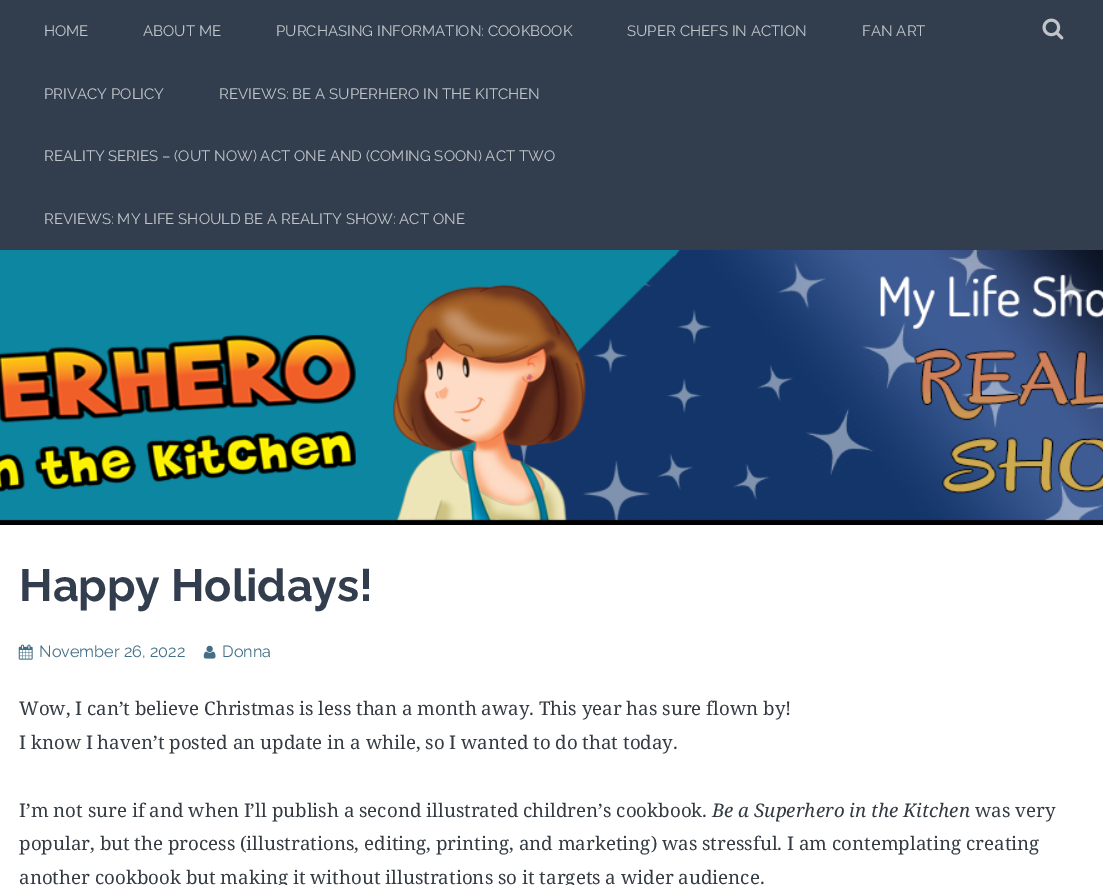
%!PS
<< /PageSize [1103 885] >> setpagedevice
/co { dup -16 bitshift 255 div exch dup -8 bitshift 255 and 255 div exch 255 and 255 div setrgbcolor } def
/fn { [ exch dup neg 0 0 3 -1 roll 0 0 ] selectfont } def
/tx { co fn moveto show } def
/bx { co rectfill } def
/im { 5 dict begin { /h /w /y /x /name } { exch def } forall
  gsave x y translate w h scale
  w h 8 [w 0 0 h 0 0] name (r) file false 3 colorimage grestore end } def
0 885 translate 1 -1 scale
4 setmiterlimit
0 0 1103 885 16#FFFFFF bx
0 0 1103 250 16#323E4E bx
(media/1.raw) 1042 18 22 22 im
(media/2.raw) 0 250 1103 275 im
(media/3.raw) 18 644 15 16 im
(media/4.raw) 203 645 13 14 im
(HOME) 44 36 /Raleway-Regular 15 16#C2C5CA tx
(ABOUT ME) 143 36 /Raleway-Regular 15 16#C2C5CA tx
(PURCHASING INFORMATION: COOKBOOK) 276 36 /Raleway-Regular 15 16#C2C5CA tx
(SUPER CHEFS IN ACTION) 627 36 /Raleway-Regular 15 16#C2C5CA tx
(FAN ART) 862 36 /Raleway-Regular 15 16#C2C5CA tx
(PRIVACY POLICY) 44 99 /Raleway-Regular 15 16#C2C5CA tx
(REVIEWS: BE A SUPERHERO IN THE KITCHEN) 219 99 /Raleway-Regular 15 16#C2C5CA tx
(REALITY SERIES – \(OUT NOW\) ACT ONE AND \(COMING SOON\) ACT TWO) 44 161 /Raleway-Regular 15 16#C2C5CA tx
(REVIEWS: MY LIFE SHOULD BE A REALITY SHOW: ACT ONE) 44 224 /Raleway-Regular 15 16#C2C5CA tx
(Happy Holidays!) 19 601 /Raleway-Bold 45 16#323E4E tx
(November 26, 2022) 39 657 /Raleway-Regular 16.25 16#426F86 tx
(Donna) 222 657 /Raleway-Regular 16.25 16#426F86 tx
(Wow, I can’t believe Christmas is less than a month away. This year has sure flown by!) 19 715 /NotoSerif-Regular 18.75 16#333A42 tx
(I know I haven’t posted an update in a while, so I wanted to do that today.) 19 749 /NotoSerif-Regular 18.75 16#333A42 tx
(I’m not sure if and when I’ll publish a second illustrated children’s cookbook.) 19 817 /NotoSerif-Regular 18.75 16#333A42 tx
(Be a Superhero in the Kitchen) 712 817 /NotoSerif-Italic 18.75 16#333A42 tx
(was very) 975 817 /NotoSerif-Regular 18.75 16#333A42 tx
(popular, but the process \(illustrations, editing, printing, and marketing\) was stressful. I am contemplating creating) 19 850 /NotoSerif-Regular 18.75 16#333A42 tx
(another cookbook but making it without illustrations so it targets a wider audience.) 19 884 /NotoSerif-Regular 18.75 16#333A42 tx
showpage
